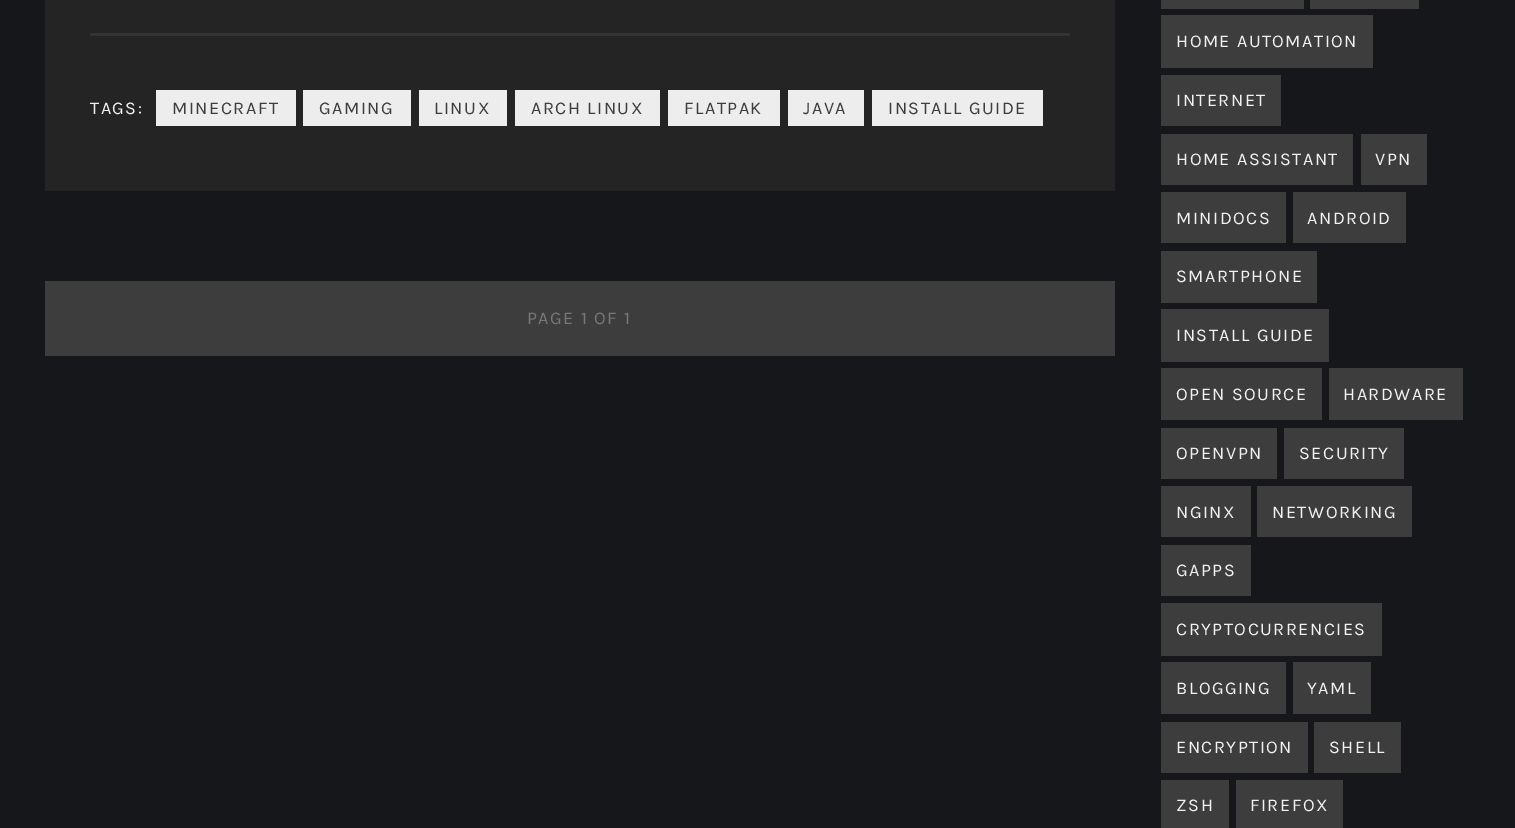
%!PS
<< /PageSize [1515 828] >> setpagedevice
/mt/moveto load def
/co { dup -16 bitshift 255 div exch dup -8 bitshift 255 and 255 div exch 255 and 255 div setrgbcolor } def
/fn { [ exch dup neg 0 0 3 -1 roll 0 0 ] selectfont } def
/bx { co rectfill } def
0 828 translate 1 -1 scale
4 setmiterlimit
0 0 1515 828 16#15171A bx
45 0 1070 191 16#242424 bx
90 33 980 3 16#333333 bx
156 90 140 36 16#EDEDED bx
303 90 108 36 16#EDEDED bx
419 90 88 36 16#EDEDED bx
515 90 145 36 16#EDEDED bx
668 90 112 36 16#EDEDED bx
788 90 76 36 16#EDEDED bx
872 90 171 36 16#EDEDED bx
45 281 1070 75 16#3D3D3D bx
1161 0 143 9 16#3D3D3D bx
1310 0 109 9 16#3D3D3D bx
1161 15 212 53 16#3D3D3D bx
1161 75 120 51 16#3D3D3D bx
1161 134 192 51 16#3D3D3D bx
1361 134 66 51 16#3D3D3D bx
1161 192 125 51 16#3D3D3D bx
1293 192 113 51 16#3D3D3D bx
1161 251 156 52 16#3D3D3D bx
1161 309 168 53 16#3D3D3D bx
1161 368 161 52 16#3D3D3D bx
1329 368 134 52 16#3D3D3D bx
1161 428 116 51 16#3D3D3D bx
1284 428 120 51 16#3D3D3D bx
1161 486 90 51 16#3D3D3D bx
1257 486 155 51 16#3D3D3D bx
1161 545 90 51 16#3D3D3D bx
1161 603 221 53 16#3D3D3D bx
1161 662 125 52 16#3D3D3D bx
1293 662 78 52 16#3D3D3D bx
1161 722 147 51 16#3D3D3D bx
1314 722 87 51 16#3D3D3D bx
1161 780 68 48 16#3D3D3D bx
1236 780 107 48 16#3D3D3D bx
/Karla-Regular 18 fn
16#F1F1F1 co
90 114 mt 1.5 0 (TAGS:) ashow
16#3D3D3D co
172 114 mt 1.5 0 (MINECRAFT) ashow
319 114 mt 1.5 0 (GAMING) ashow
434 114 mt 1.5 0 (LINUX) ashow
531 114 mt 1.5 0 (ARCH LINUX) ashow
684 114 mt 1.5 0 (FLATPAK) ashow
803 114 mt 1.5 0 (JAVA) ashow
888 114 mt 1.5 0 (INSTALL GUIDE) ashow
16#777777 co
527 324 mt 1.5 0 (PAGE 1 OF 1) ashow
16#F1F1F1 co
1176 47 mt 1.5 0 (HOME AUTOMATION) ashow
1176 106 mt 1.5 0 (INTERNET) ashow
1176 165 mt 1.5 0 (HOME ASSISTANT) ashow
1375 165 mt 1.5 0 (VPN) ashow
1176 224 mt 1.5 0 (MINIDOCS) ashow
1307 224 mt 1.5 0 (ANDROID) ashow
1176 282 mt 1.5 0 (SMARTPHONE) ashow
1176 341 mt 1.5 0 (INSTALL GUIDE) ashow
1176 400 mt 1.5 0 (OPEN SOURCE) ashow
1343 400 mt 1.5 0 (HARDWARE) ashow
1176 459 mt 1.5 0 (OPENVPN) ashow
1299 459 mt 1.5 0 (SECURITY) ashow
1176 518 mt 1.5 0 (NGINX) ashow
1272 518 mt 1.5 0 (NETWORKING) ashow
1176 576 mt 1.5 0 (GAPPS) ashow
1176 635 mt 1.5 0 (CRYPTOCURRENCIES) ashow
1176 694 mt 1.5 0 (BLOGGING) ashow
1307 694 mt 1.5 0 (YAML) ashow
1176 753 mt 1.5 0 (ENCRYPTION) ashow
1329 753 mt 1.5 0 (SHELL) ashow
1176 811 mt 1.5 0 (ZSH) ashow
1250 811 mt 1.5 0 (FIREFOX) ashow
showpage
